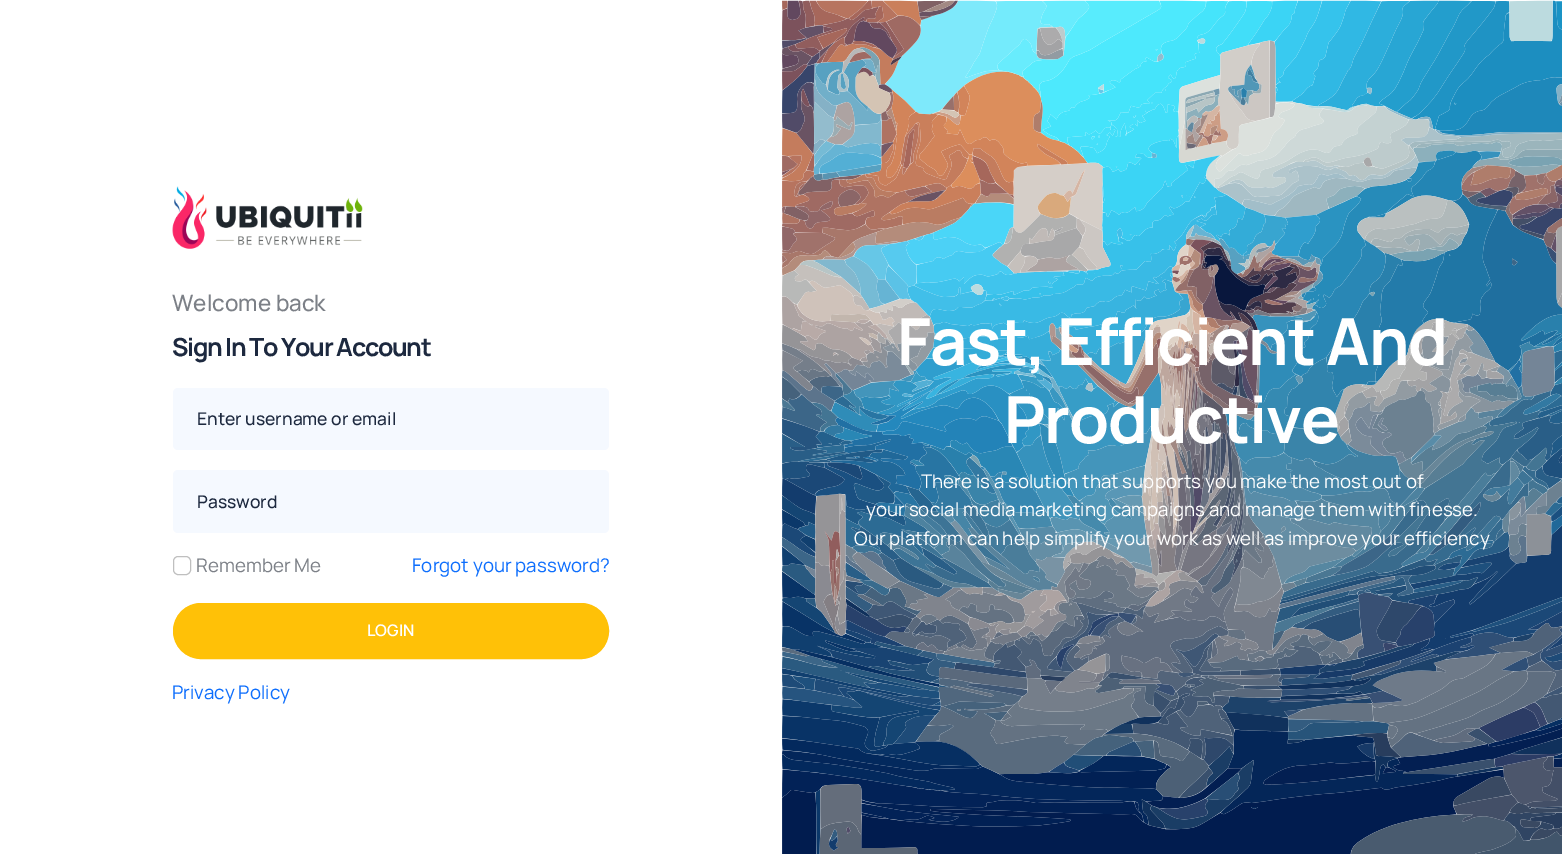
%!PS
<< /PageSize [1562 854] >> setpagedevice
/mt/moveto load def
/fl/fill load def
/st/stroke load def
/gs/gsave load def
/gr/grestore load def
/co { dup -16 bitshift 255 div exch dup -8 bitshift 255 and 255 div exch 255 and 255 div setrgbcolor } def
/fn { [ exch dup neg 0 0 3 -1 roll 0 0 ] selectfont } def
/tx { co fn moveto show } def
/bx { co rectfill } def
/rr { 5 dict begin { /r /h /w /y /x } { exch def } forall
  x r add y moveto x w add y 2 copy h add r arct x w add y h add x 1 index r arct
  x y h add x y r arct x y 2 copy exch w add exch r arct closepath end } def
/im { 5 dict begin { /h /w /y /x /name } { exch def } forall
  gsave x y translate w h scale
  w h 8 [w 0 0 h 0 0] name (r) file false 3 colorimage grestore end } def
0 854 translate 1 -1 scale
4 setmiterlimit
0 0 1562 854 16#FFFFFF bx
(media/1.raw) 172 186 191 63 im
16#F5F9FF co
173 388 436 62 5 rr fl
173 470 436 63 5 rr fl
16#BFBFBF co
173.5 556.5 17 18 4.5 rr st
16#FFC107 co
173.5 603.5 435 55 27.5 rr gs fl gr
st
(media/2.raw) 782 0 780 854 im
(Welcome back) 172 311 /Manrope-Medium 22.5 16#7C8087 tx
/Manrope-Bold 25 fn
16#1D293F co
172 356 mt -1.25 0 (Sign In To Your Account) ashow
(Enter username or email) 197 425 /Manrope-Medium 17.5 16#1D293F tx
(Password) 197 508 /Manrope-Medium 17.5 16#1D293F tx
(Remember Me) 196 572 /Manrope-Regular 18.75 16#7C8087 tx
(Forgot your password?) 412 572 /Manrope-Regular 18.75 16#0D6EFD tx
(LOGIN) 367 636 /Manrope-SemiBold 16 16#FFFFFF tx
(Privacy Policy) 172 699 /Manrope-Regular 18.75 16#0D6EFD tx
/Manrope-Bold 65 fn
16#FFFFFF co
897 365 mt -1.25 0 (Fast, Efficient And) ashow
1004 443 mt -1.25 0 (Productive) ashow
(There is a solution that supports you make the most out of) 921 488 /Manrope-Regular 18.75 16#FFFFFF tx
(your social media marketing campaigns and manage them with finesse.) 866 516 /Manrope-Regular 18.75 16#FFFFFF tx
(Our platform can help simplify your work as well as improve your efficiency) 854 545 /Manrope-Regular 18.75 16#FFFFFF tx
showpage
